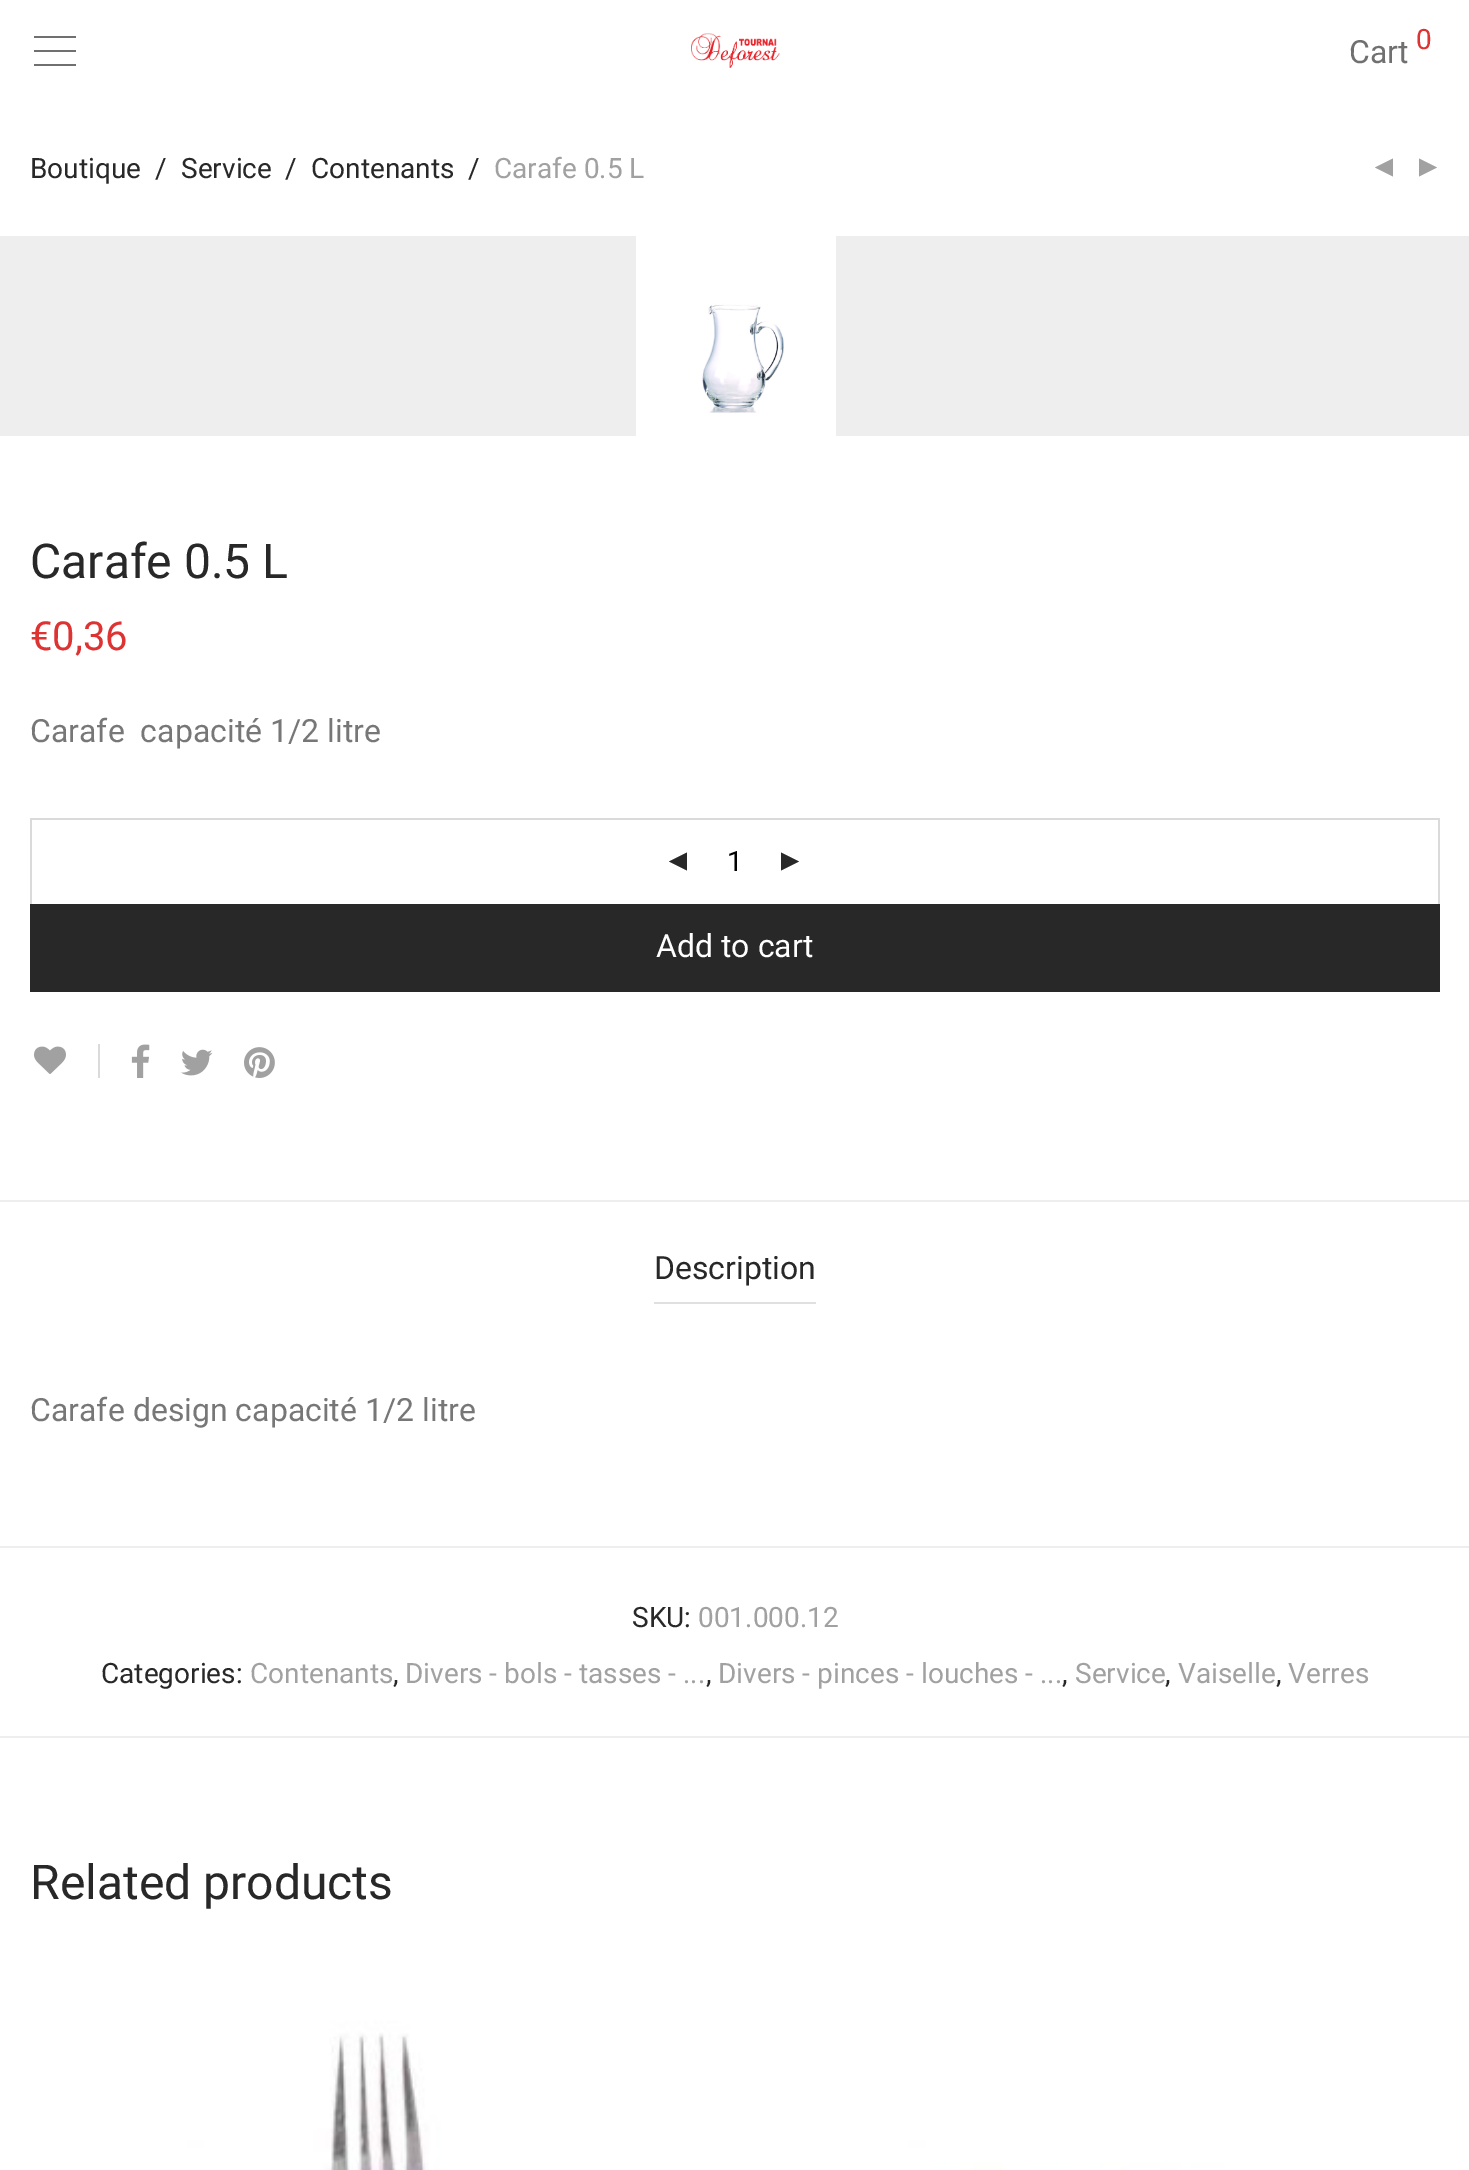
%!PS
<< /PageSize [1469 2170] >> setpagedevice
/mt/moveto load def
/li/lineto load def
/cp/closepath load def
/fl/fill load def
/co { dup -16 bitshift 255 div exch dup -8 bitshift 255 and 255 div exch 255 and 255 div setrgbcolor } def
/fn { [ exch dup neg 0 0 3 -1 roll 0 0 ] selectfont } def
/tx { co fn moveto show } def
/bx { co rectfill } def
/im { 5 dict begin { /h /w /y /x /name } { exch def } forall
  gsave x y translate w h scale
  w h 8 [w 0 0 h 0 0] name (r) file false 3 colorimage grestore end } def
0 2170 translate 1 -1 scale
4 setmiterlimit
0 0 1469 2170 16#FFFFFF bx
(media/1.raw) 691 33 89 35 im
34 36 42 2 16#707070 bx
34 50 42 2 16#707070 bx
34 64 42 2 16#707070 bx
16#A1A1A1 co
1393 158.5 mt 1393 176.5 li 1375 167.5 li cp 1419 158.5 mt 1419 176.5 li 1437 167.5 li cp fl
0 236 1469 200 16#EEEEEE bx
(media/2.raw) 636 236 200 200 im
30 818 1410 2 16#DADADA bx
1438 818 2 86 16#DADADA bx
30 818 2 86 16#DADADA bx
16#282828 co
687 852.5 mt 687 870.5 li 669 861.5 li cp fl
781 852.5 mt 781 870.5 li 799 861.5 li cp fl
30 904 1410 88 16#282828 bx
98 1044 2 34 16#DADADA bx
(media/3.raw) 34 1046 32 28 im
(media/4.raw) 131 1044 19 34 im
(media/5.raw) 181 1049 32 27 im
(media/6.raw) 244 1047 31 31 im
0 1200 1469 2 16#EEEEEE bx
0 1546 1469 2 16#EEEEEE bx
654 1302 162 2 16#E0E0E0 bx
0 1736 1469 2 16#EEEEEE bx
(media/7.raw) 30 1974 690 196 im
(media/8.raw) 752 1974 688 196 im
(Cart) 1349 63 /Roboto-Regular 32 16#707070 tx
(0) 1416 49 /Roboto-Regular 28 16#DD3333 tx
(Boutique) 30 178 /Roboto-Regular 28 16#282828 tx
(/) 155 178 /Roboto-Regular 28 16#282828 tx
(Service) 181 178 /Roboto-Regular 28 16#282828 tx
(/) 285 178 /Roboto-Regular 28 16#282828 tx
(Contenants) 311 178 /Roboto-Regular 28 16#282828 tx
(/) 468 178 /Roboto-Regular 28 16#282828 tx
(Carafe 0.5 L) 494 178 /Roboto-Regular 28 16#A1A1A1 tx
(Carafe 0.5 L) 30 578 /Roboto-Regular 48 16#282828 tx
(€0,36) 30 650 /Roboto-Regular 40 16#DD3333 tx
(Carafe  capacité 1/2 litre) 30 742 /Roboto-Regular 32 16#777777 tx
(1) 727 871 /Roboto-Regular 28 16#000000 tx
(Add to cart) 656 957 /Roboto-Regular 32 16#FFFFFF tx
(Description) 654 1279 /Roboto-Regular 32 16#282828 tx
(Carafe design capacité 1/2 litre) 30 1421 /Roboto-Regular 32 16#777777 tx
(SKU:) 632 1627 /Roboto-Regular 28 16#282828 tx
(001.000.12) 698 1627 /Roboto-Regular 28 16#A1A1A1 tx
(Categories:) 101 1683 /Roboto-Regular 28 16#282828 tx
(Contenants) 250 1683 /Roboto-Regular 28 16#A1A1A1 tx
(,) 393 1683 /Roboto-Regular 28 16#282828 tx
(Divers - bols - tasses - ...) 405 1683 /Roboto-Regular 28 16#A1A1A1 tx
(,) 706 1683 /Roboto-Regular 28 16#282828 tx
(Divers - pinces - louches - ...) 718 1683 /Roboto-Regular 28 16#A1A1A1 tx
(,) 1062 1683 /Roboto-Regular 28 16#282828 tx
(Service) 1075 1683 /Roboto-Regular 28 16#A1A1A1 tx
(,) 1165 1683 /Roboto-Regular 28 16#282828 tx
(Vaiselle) 1178 1683 /Roboto-Regular 28 16#A1A1A1 tx
(,) 1276 1683 /Roboto-Regular 28 16#282828 tx
(Verres) 1288 1683 /Roboto-Regular 28 16#A1A1A1 tx
(Related products) 30 1899 /Roboto-Regular 48 16#282828 tx
showpage
